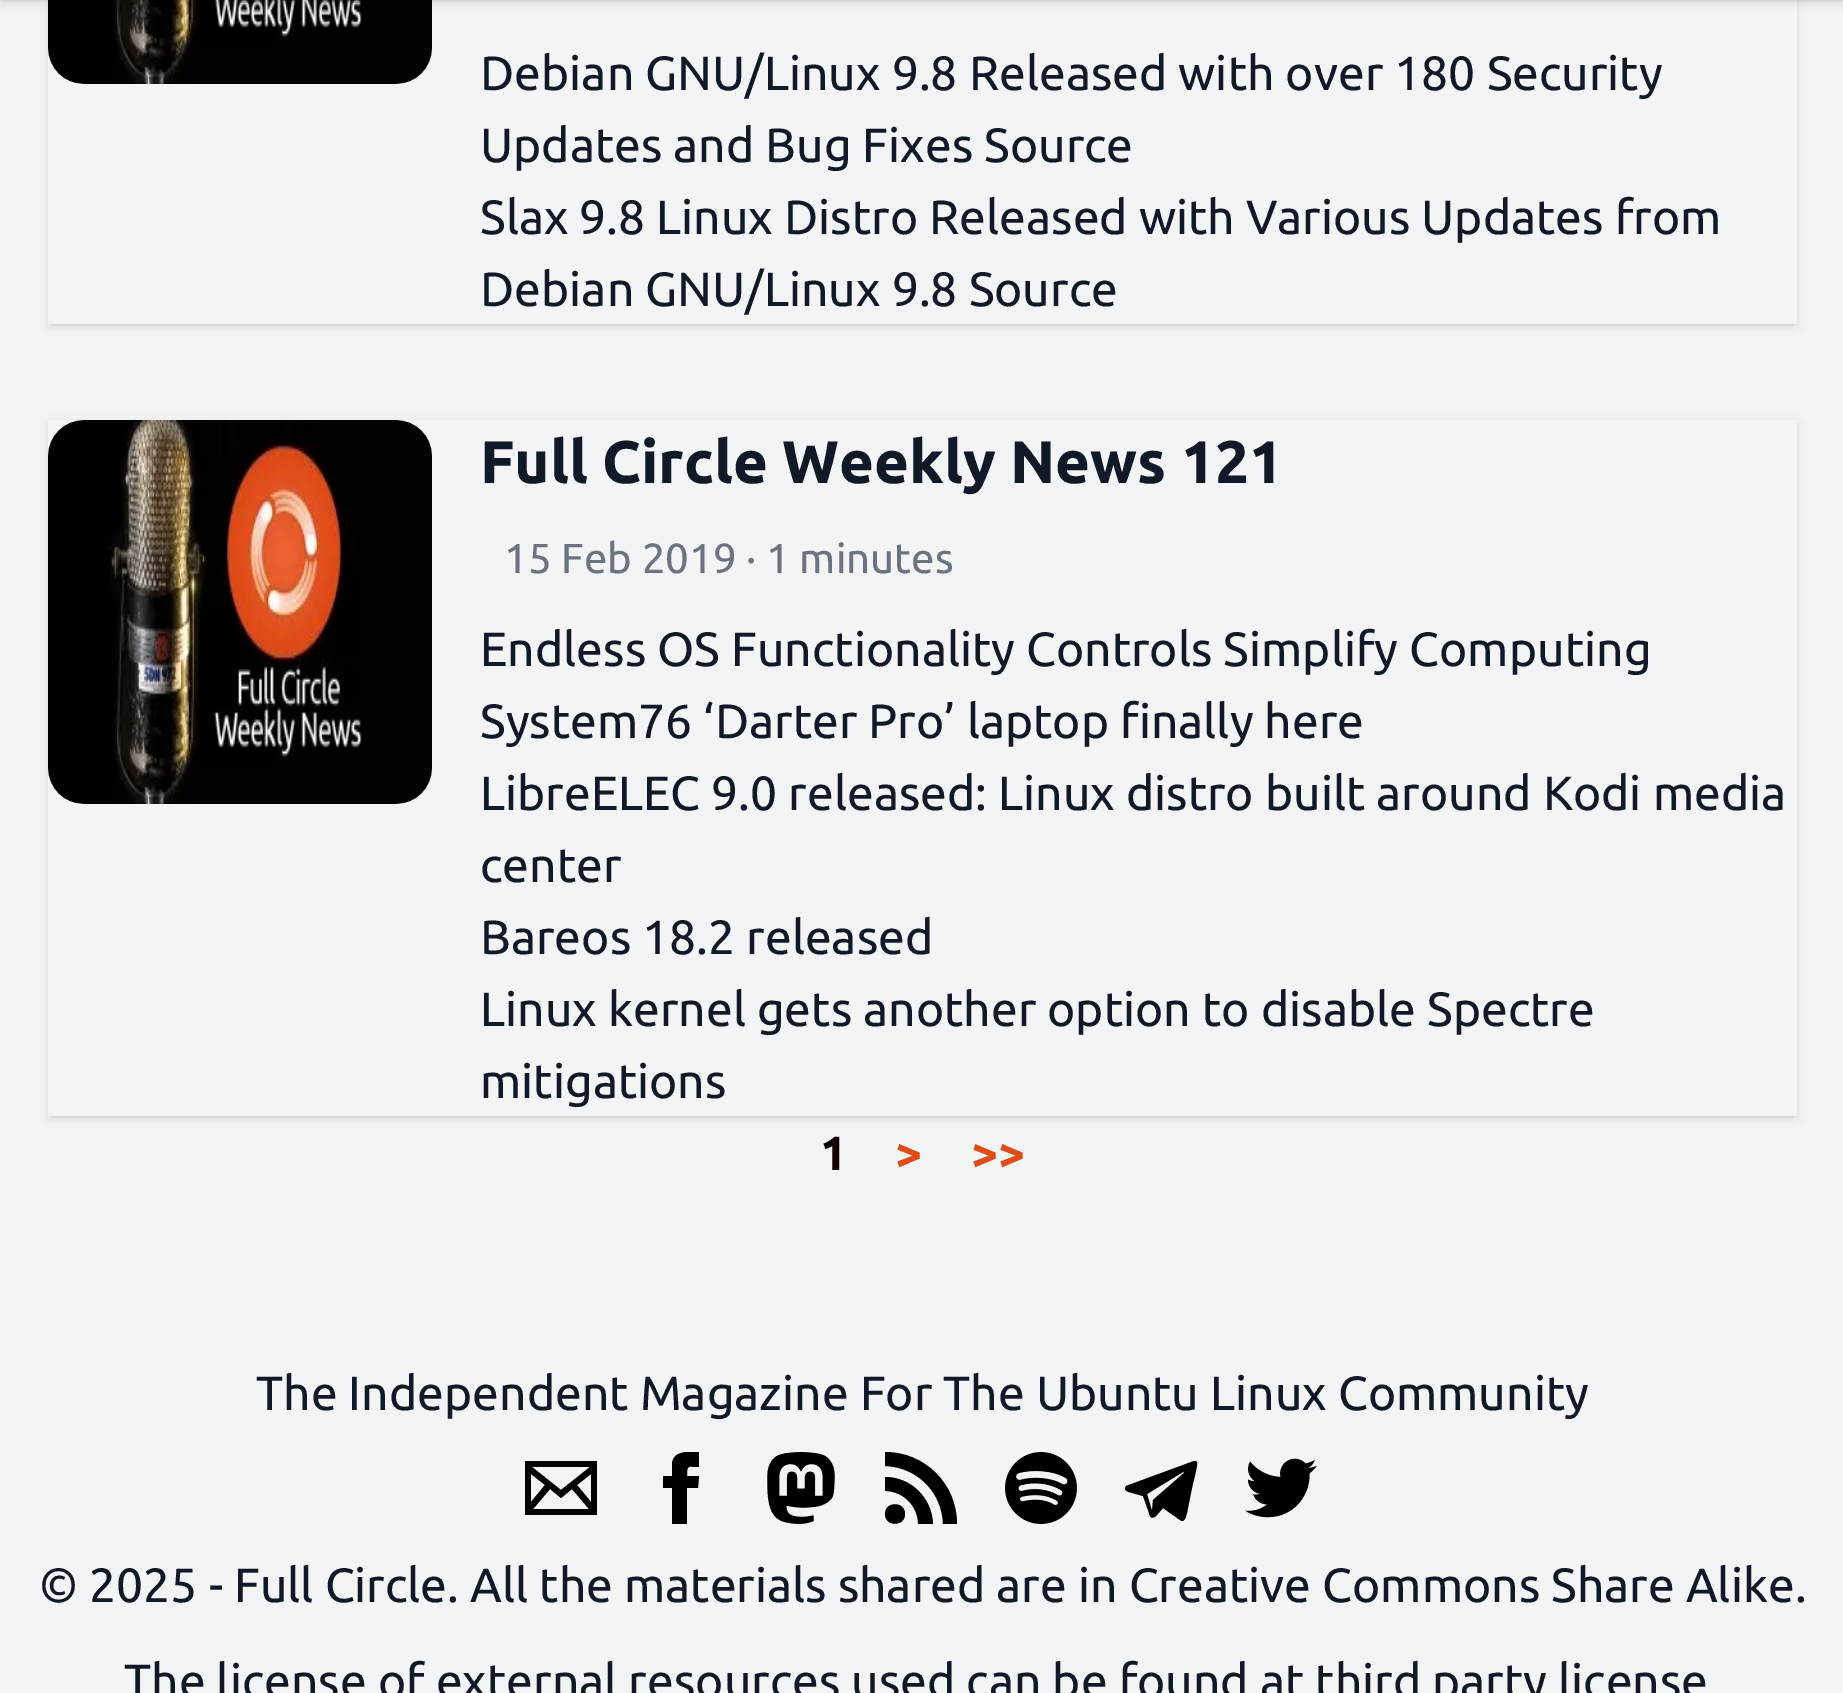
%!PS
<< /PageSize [1843 1693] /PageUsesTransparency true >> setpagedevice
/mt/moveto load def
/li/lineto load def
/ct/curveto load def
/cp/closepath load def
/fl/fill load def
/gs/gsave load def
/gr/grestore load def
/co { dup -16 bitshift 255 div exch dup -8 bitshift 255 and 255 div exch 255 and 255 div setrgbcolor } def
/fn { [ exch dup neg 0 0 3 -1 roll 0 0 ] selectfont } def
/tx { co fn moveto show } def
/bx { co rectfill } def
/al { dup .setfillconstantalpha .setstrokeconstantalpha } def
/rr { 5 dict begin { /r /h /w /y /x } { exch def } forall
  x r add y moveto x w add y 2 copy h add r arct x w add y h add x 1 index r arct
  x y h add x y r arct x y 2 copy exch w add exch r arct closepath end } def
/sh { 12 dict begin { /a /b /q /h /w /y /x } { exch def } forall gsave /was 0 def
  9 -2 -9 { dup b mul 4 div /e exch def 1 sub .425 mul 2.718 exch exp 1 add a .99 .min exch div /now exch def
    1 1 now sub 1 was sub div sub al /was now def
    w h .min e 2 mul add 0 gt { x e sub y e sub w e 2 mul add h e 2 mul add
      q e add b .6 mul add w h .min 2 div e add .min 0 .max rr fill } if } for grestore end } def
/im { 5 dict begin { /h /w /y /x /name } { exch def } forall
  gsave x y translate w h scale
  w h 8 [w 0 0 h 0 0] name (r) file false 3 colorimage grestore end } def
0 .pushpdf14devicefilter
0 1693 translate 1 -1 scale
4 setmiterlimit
0 0 1843 1693 16#F3F4F6 bx
gs
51 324 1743 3 rectclip
16#000000 co
51 -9 1743 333 0 3 .1 sh
gr
gs
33 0 mt 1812 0 li 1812 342 li 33 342 li cp 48 -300 mt 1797 -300 li 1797 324 li 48 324 li cp eoclip newpath
16#000000 co
48 -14 1749 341 0 4.5 .1 sh
gr
(media/1.raw) 48 0 384 84 im
16#000000 co
3 -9 1839 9 0 3 .1 sh
0 -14 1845 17 0 4.5 .1 sh
gs
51 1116 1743 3 rectclip
51 426 1743 690 0 3 .1 sh
gr
gs
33 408 mt 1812 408 li 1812 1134 li 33 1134 li cp 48 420 mt 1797 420 li 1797 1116 li 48 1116 li cp eoclip newpath
48 423 1749 696 0 4.5 .1 sh
gr
(media/2.raw) 48 420 384 384 im
525 1461 mt 525 1515 li 597 1515 li 597 1461 li cp 545 1485 mt 531 1502 li 531 1474 li cp 532 1467 mt 590 1467 li 561 1490 li cp 550 1489 mt 561 1498 li 572 1489 li 589 1509 li 533 1509 li cp 577 1485 mt 591 1474 li 591 1502 li cp fl
gs
645 1452 72 72 rectclip
672 1476 mt 663 1476 li 663 1488 li 672 1488 li 672 1524 li 687 1524 li 687 1488 li 698 1488 li 699 1476 li 687 1476 li 687 1464 688 1467 699 1467 ct 699 1452 li 689 1452 674 1450 672 1463 ct cp fl
gr
(media/3.raw) 767 1452 68 72 im
905 1514 mt 905 1527 885 1527 885 1514 ct 885 1501 905 1501 905 1514 ct cp 885 1477 mt 885 1491 li 903 1491 918 1506 918 1524 ct 933 1524 li 932 1498 911 1477 885 1477 ct cp 885 1466 mt 917 1467 942 1492 943 1524 ct 957 1524 li 957 1484 925 1452 885 1452 ct cp fl
(media/4.raw) 1005 1452 72 72 im
1180 1520 mt 1185 1524 1186 1515 1187 1513 ct 1193 1483 li 1194 1480 1198 1464 1197 1462 ct 1196 1461 li 1194 1461 li 1126 1486 li 1125 1488 li 1125 1492 1130 1492 1132 1493 ct 1143 1496 li 1149 1513 li 1150 1518 1152 1519 1156 1516 ct 1163 1508 li cp 1147 1494 mt 1152 1511 li 1153 1500 li 1184 1473 li 1184 1472 1183 1471 1183 1472 ct cp eofill
(media/5.raw) 1245 1458 72 60 im
(Debian GNU/Linux 9.8 Released with over 180 Security) 480 90 /Ubuntu-Regular 48 16#111827 tx
(Updates and Bug Fixes Source) 480 162 /Ubuntu-Regular 48 16#111827 tx
(Slax 9.8 Linux Distro Released with Various Updates from) 480 234 /Ubuntu-Regular 48 16#111827 tx
(Debian GNU/Linux 9.8 Source) 480 306 /Ubuntu-Regular 48 16#111827 tx
(Full Circle Weekly News 121) 480 483 /Ubuntu-Bold 60 16#111827 tx
(15 Feb 2019 · 1 minutes) 504 573 /Ubuntu-Regular 42 16#6B7280 tx
(Endless OS Functionality Controls Simplify Computing) 480 666 /Ubuntu-Regular 48 16#111827 tx
(System76 ‘Darter Pro’ laptop finally here) 480 738 /Ubuntu-Regular 48 16#111827 tx
(LibreELEC 9.0 released: Linux distro built around Kodi media) 480 810 /Ubuntu-Regular 48 16#111827 tx
(center) 480 882 /Ubuntu-Regular 48 16#111827 tx
(Bareos 18.2 released) 480 954 /Ubuntu-Regular 48 16#111827 tx
(Linux kernel gets another option to disable Spectre) 480 1026 /Ubuntu-Regular 48 16#111827 tx
(mitigations) 480 1098 /Ubuntu-Regular 48 16#111827 tx
(1) 820 1170 /Ubuntu-Bold 48 16#110000 tx
(>) 895 1170 /Ubuntu-Bold 48 16#DF4C18 tx
(>>) 971 1170 /Ubuntu-Bold 48 16#DF4C18 tx
(The Independent Magazine For The Ubuntu Linux Community) 256 1410 /Ubuntu-Regular 48 16#111827 tx
(© 2025 - Full Circle. All the materials shared are in Creative Commons Share Alike.) 39 1602 /Ubuntu-Regular 48 16#111827 tx
(The license of external resources used can be found at third party license) 124 1698 /Ubuntu-Regular 48 16#111827 tx
.poppdf14devicefilter showpage
